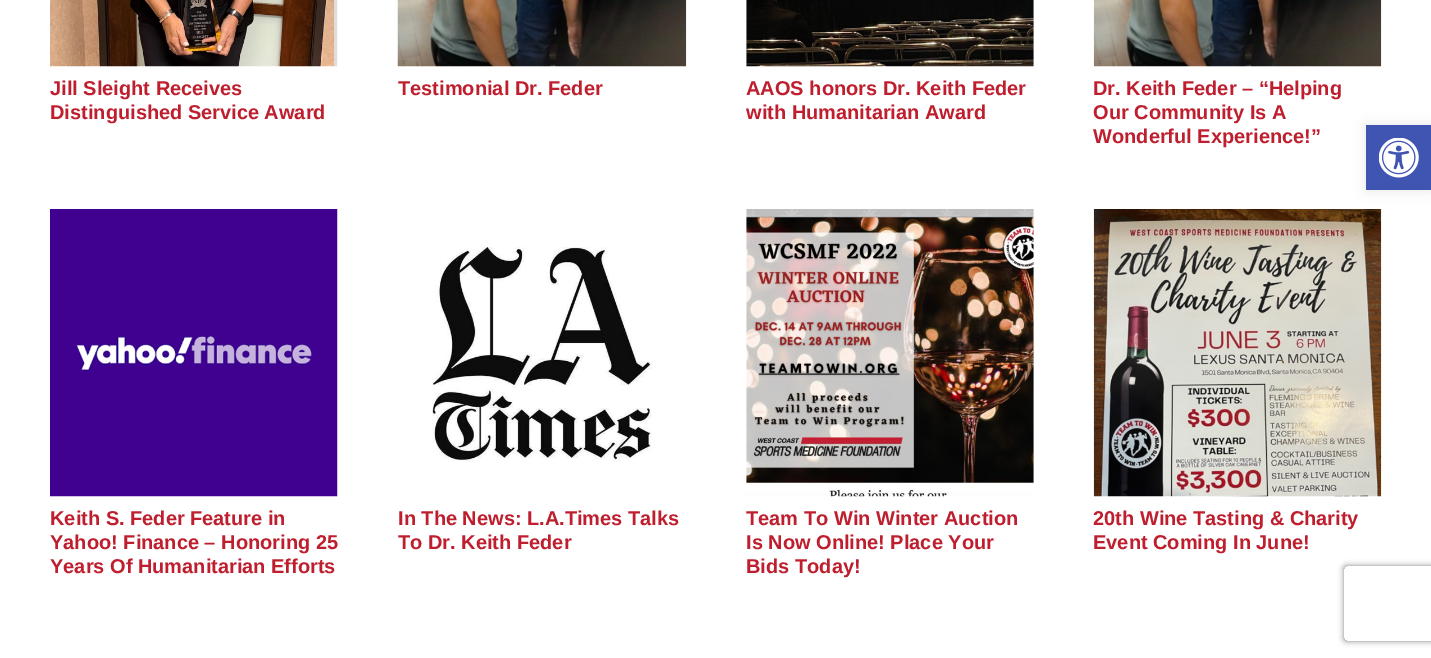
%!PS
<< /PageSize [1431 658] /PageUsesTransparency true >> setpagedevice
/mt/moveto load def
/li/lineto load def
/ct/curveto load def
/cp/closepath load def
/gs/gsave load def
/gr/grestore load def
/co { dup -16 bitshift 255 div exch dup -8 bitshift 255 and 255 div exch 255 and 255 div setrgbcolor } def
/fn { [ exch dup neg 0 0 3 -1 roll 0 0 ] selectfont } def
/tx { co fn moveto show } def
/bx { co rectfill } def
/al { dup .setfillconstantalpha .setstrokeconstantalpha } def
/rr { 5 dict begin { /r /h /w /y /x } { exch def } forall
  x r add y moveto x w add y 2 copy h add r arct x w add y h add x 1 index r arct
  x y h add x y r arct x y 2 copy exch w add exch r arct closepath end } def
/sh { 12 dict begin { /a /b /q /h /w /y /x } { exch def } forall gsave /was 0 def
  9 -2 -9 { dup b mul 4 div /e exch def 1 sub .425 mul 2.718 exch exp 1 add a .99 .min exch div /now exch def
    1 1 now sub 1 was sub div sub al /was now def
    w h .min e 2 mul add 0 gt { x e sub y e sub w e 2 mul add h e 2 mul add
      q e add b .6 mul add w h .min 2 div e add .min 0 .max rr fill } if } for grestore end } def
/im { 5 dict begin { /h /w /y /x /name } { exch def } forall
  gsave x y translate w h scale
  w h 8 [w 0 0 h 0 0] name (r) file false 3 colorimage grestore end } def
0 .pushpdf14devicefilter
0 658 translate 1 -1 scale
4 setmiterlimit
0 0 1431 658 16#FFFFFF bx
(media/1.raw) 50 0 288 67 im
(media/2.raw) 397 0 290 67 im
(media/3.raw) 746 0 288 67 im
(media/4.raw) 1093 0 289 67 im
(media/5.raw) 50 209 288 288 im
(media/6.raw) 431 247 221 215 im
(media/7.raw) 746 209 288 288 im
(media/8.raw) 1093 209 289 288 im
16#000000 co
1366 125 65 65 0 6 .1 sh
1366 125 65 65 16#4054B2 bx
(media/9.raw) 1379 138 40 40 im
gs
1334 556 mt 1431 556 li 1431 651 li 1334 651 li cp 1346.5 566 mt 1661.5 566 li 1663 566 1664 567 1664 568.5 ct 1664 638.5 li 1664 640 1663 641 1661.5 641 ct 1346.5 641 li 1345 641 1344 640 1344 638.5 ct 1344 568.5 li 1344 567 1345 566 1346.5 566 ct cp eoclip newpath
16#808080 co
1344 566 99 75 2.5 3 1 sh
gr
(Jill Sleight Receives) 50 95 /LiberationSans-Bold 20 16#BE1E2D tx
(Distinguished Service Award) 50 119 /LiberationSans-Bold 20 16#BE1E2D tx
(Testimonial Dr. Feder) 398 95 /LiberationSans-Bold 20 16#BE1E2D tx
(AAOS honors Dr. Keith Feder) 746 95 /LiberationSans-Bold 20 16#BE1E2D tx
(with Humanitarian Award) 746 119 /LiberationSans-Bold 20 16#BE1E2D tx
(Dr. Keith Feder – “Helping) 1093 95 /LiberationSans-Bold 20 16#BE1E2D tx
(Our Community Is A) 1093 119 /LiberationSans-Bold 20 16#BE1E2D tx
(Wonderful Experience!”) 1093 143 /LiberationSans-Bold 20 16#BE1E2D tx
(Keith S. Feder Feature in) 50 525 /LiberationSans-Bold 20 16#BE1E2D tx
(Yahoo! Finance – Honoring 25) 50 549 /LiberationSans-Bold 20 16#BE1E2D tx
(Years Of Humanitarian Efforts) 50 573 /LiberationSans-Bold 20 16#BE1E2D tx
(In The News: L.A.Times Talks) 398 525 /LiberationSans-Bold 20 16#BE1E2D tx
(To Dr. Keith Feder) 398 549 /LiberationSans-Bold 20 16#BE1E2D tx
(Team To Win Winter Auction) 746 525 /LiberationSans-Bold 20 16#BE1E2D tx
(Is Now Online! Place Your) 746 549 /LiberationSans-Bold 20 16#BE1E2D tx
(Bids Today!) 746 573 /LiberationSans-Bold 20 16#BE1E2D tx
(20th Wine Tasting & Charity) 1093 525 /LiberationSans-Bold 20 16#BE1E2D tx
(Event Coming In June!) 1093 549 /LiberationSans-Bold 20 16#BE1E2D tx
.poppdf14devicefilter showpage
